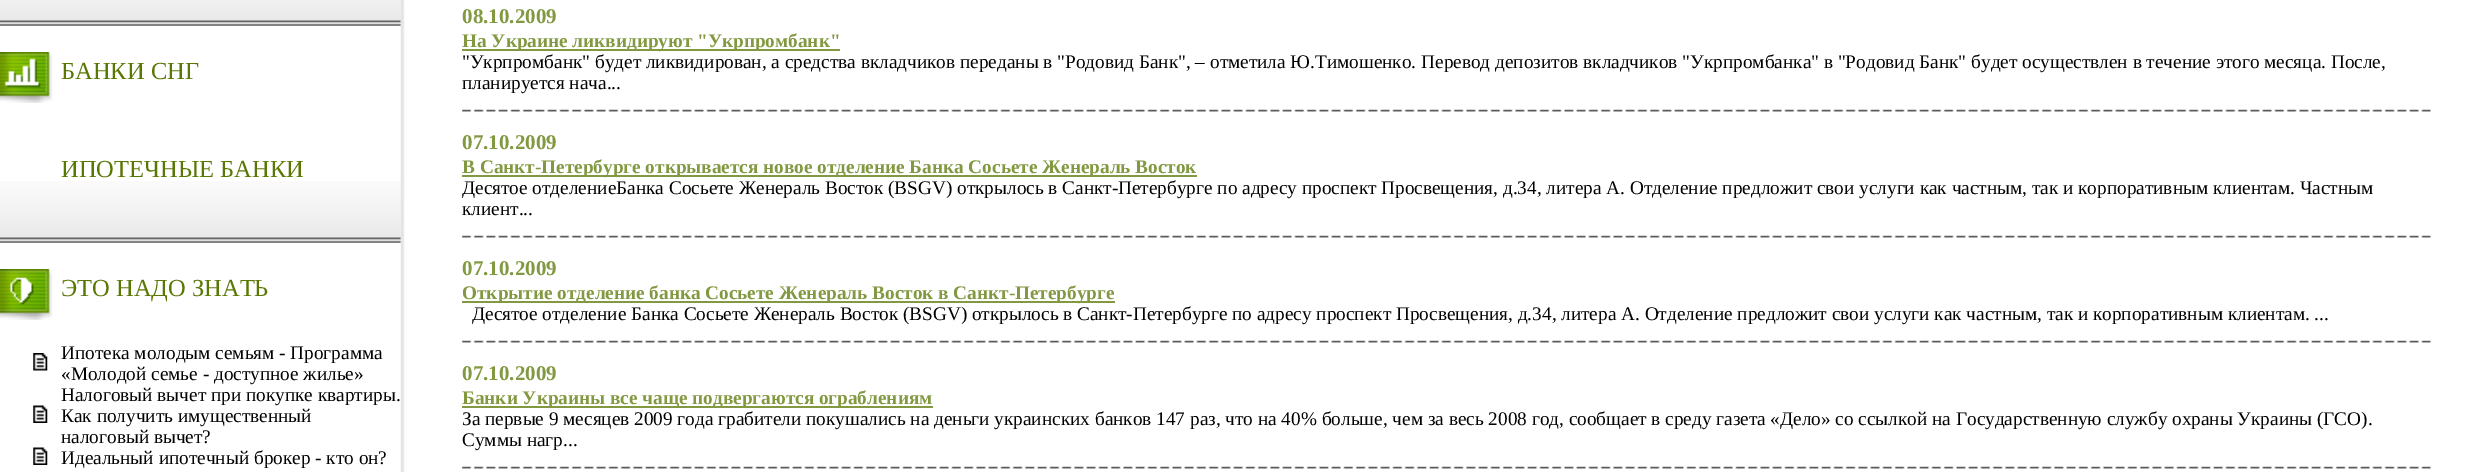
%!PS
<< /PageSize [2473 472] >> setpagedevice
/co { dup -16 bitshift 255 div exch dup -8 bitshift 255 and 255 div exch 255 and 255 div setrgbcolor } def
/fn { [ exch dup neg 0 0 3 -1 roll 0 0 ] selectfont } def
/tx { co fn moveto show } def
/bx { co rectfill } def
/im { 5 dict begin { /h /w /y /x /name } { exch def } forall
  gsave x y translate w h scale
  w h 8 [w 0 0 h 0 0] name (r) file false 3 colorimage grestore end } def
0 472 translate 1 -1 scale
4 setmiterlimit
0 0 2473 472 16#FFFFFF bx
(media/1.raw) 0 0 401 26 im
(media/2.raw) 0 181 401 62 im
(media/3.raw) 0 52 53 51 im
(media/4.raw) 0 269 53 51 im
(media/5.raw) 33 353 15 18 im
(media/6.raw) 33 405 15 18 im
(media/6.raw) 33 447 15 18 im
(media/7.raw) 400 0 5 472 im
462 49 378 2 16#829941 bx
(media/8.raw) 462 109 1969 3 im
462 175 735 2 16#829941 bx
(media/8.raw) 462 235 1969 3 im
462 301 653 2 16#829941 bx
(media/8.raw) 462 340 1969 3 im
462 406 471 2 16#829941 bx
(media/8.raw) 462 466 1969 3 im
(БАНКИ СНГ) 61 79 /LiberationSerif-Regular 24.5 16#597803 tx
(ИПОТЕЧНЫЕ БАНКИ) 61 177 /LiberationSerif-Regular 24.5 16#597803 tx
(ЭТО НАДО ЗНАТЬ) 61 296 /LiberationSerif-Regular 24.5 16#597803 tx
(Ипотека молодым семьям - Программа) 61 359 /LiberationSerif-Regular 19.25 16#000000 tx
(«Молодой семье - доступное жилье») 61 380 /LiberationSerif-Regular 19.25 16#000000 tx
(Налоговый вычет при покупке квартиры.) 61 401 /LiberationSerif-Regular 19.25 16#000000 tx
(Как получить имущественный) 61 422 /LiberationSerif-Regular 19.25 16#000000 tx
(налоговый вычет?) 61 443 /LiberationSerif-Regular 19.25 16#000000 tx
(Идеальный ипотечный брокер - кто он?) 61 464 /LiberationSerif-Regular 19.25 16#000000 tx
(08.10.2009) 462 23 /LiberationSerif-Bold 21 16#829941 tx
(На Украине ликвидируют "Укрпромбанк") 462 47 /LiberationSerif-Bold 19.25 16#829941 tx
("Укрпромбанк" будет ликвидирован, а средства вкладчиков переданы в "Родовид Банк", – отметила Ю.Тимошенко. Перевод депозитов вкладчиков "Укрпромбанка" в "Родовид Банк" будет осуществлен в течение этого месяца. После,) 462 68 /LiberationSerif-Regular 19.25 16#000000 tx
(планируется нача...) 462 89 /LiberationSerif-Regular 19.25 16#000000 tx
(07.10.2009) 462 149 /LiberationSerif-Bold 21 16#829941 tx
(В Санкт-Петербурге открывается новое отделение Банка Сосьете Женераль Восток) 462 173 /LiberationSerif-Bold 19.25 16#829941 tx
(Десятое отделениеБанка Сосьете Женераль Восток \(BSGV\) открылось в Санкт-Петербурге по адресу проспект Просвещения, д.34, литера А. Отделение предложит свои услуги как частным, так и корпоративным клиентам. Частным) 462 194 /LiberationSerif-Regular 19.25 16#000000 tx
(клиент...) 462 215 /LiberationSerif-Regular 19.25 16#000000 tx
(07.10.2009) 462 275 /LiberationSerif-Bold 21 16#829941 tx
(Открытие отделение банка Сосьете Женераль Восток в Санкт-Петербурге) 462 299 /LiberationSerif-Bold 19.25 16#829941 tx
(Десятое отделение Банка Сосьете Женераль Восток \(BSGV\) открылось в Санкт-Петербурге по адресу проспект Просвещения, д.34, литера А. Отделение предложит свои услуги как частным, так и корпоративным клиентам. ...) 472 320 /LiberationSerif-Regular 19.25 16#000000 tx
(07.10.2009) 462 380 /LiberationSerif-Bold 21 16#829941 tx
(Банки Украины все чаще подвергаются ограблениям) 462 404 /LiberationSerif-Bold 19.25 16#829941 tx
(За первые 9 месяцев 2009 года грабители покушались на деньги украинских банков 147 раз, что на 40% больше, чем за весь 2008 год, сообщает в среду газета «Дело» со ссылкой на Государственную службу охраны Украины \(ГСО\).) 462 425 /LiberationSerif-Regular 19.25 16#000000 tx
(Суммы нагр...) 462 446 /LiberationSerif-Regular 19.25 16#000000 tx
showpage
